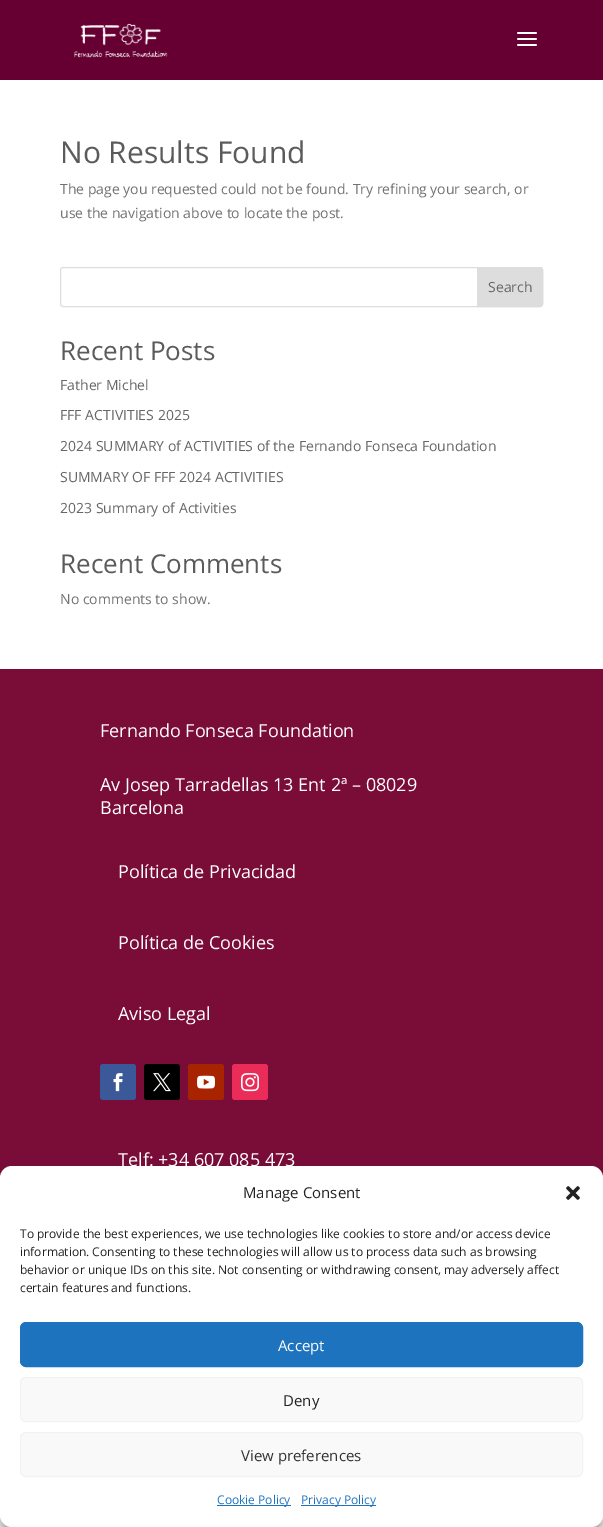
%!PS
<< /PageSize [603 1527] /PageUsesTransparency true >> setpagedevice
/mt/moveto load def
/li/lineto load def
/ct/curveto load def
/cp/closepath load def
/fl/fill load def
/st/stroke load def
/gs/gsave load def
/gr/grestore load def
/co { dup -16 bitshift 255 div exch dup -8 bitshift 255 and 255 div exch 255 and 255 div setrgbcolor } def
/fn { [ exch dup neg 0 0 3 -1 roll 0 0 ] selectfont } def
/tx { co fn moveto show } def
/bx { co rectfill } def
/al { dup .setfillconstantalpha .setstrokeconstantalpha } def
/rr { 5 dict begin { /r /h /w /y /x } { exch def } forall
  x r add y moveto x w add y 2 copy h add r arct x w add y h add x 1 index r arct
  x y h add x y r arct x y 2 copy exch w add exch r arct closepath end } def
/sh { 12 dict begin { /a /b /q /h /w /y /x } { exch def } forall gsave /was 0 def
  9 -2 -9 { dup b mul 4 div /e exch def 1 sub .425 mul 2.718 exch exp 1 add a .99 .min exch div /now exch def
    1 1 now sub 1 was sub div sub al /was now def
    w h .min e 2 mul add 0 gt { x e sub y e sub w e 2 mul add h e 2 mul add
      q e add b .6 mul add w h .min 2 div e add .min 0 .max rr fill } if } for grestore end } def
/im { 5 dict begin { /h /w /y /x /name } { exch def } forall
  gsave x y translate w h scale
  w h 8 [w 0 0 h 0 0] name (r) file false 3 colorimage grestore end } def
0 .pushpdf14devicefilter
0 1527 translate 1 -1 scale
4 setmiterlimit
0 0 603 1527 16#FFFFFF bx
0 0 603 80 16#660033 bx
(media/1.raw) 74 23 94 35 im
(media/2.raw) 517 32 20 14 im
16#DDDDDD co
60.5 267.5 482 39 2.5 rr st
477.5 267.5 mt 540 267.5 li 541.5 267.5 542.5 268.5 542.5 270 ct 542.5 304 li 542.5 305.5 541.5 306.5 540 306.5 ct 477.5 306.5 li cp gs fl gr
st
0 669 603 509 16#7A0C38 bx
16#3B5998 co
100 1064 36 36 3 rr fl
(media/3.raw) 113 1073 10 19 im
16#000000 co
144 1064 36 36 3 rr fl
(media/4.raw) 153 1073 18 19 im
16#A82400 co
188 1064 36 36 3 rr fl
(media/5.raw) 197 1075 18 14 im
16#EA2C59 co
232 1064 36 36 3 rr fl
(media/6.raw) 241 1073 18 19 im
16#000000 co
0 1172 603 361 12 3 .23 sh
0 1176 603 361 12 10 .19 sh
16#FFFFFF co
0 1166 603 361 12 rr fl
(media/7.raw) 566 1186 14 14 im
16#1E73BE co
20.5 1322.5 562 44 5.5 rr gs fl gr
st
16#F9F9F9 co
20.5 1377.5 562 44 5.5 rr gs fl gr
16#F2F2F2 co
st
16#F9F9F9 co
20.5 1432.5 562 44 5.5 rr gs fl gr
16#F2F2F2 co
st
217 1505 74 1 16#1E73BE bx
301 1505 75 1 16#1E73BE bx
(No Results Found) 60 163 /OpenSans-Regular 30 16#5B5B5B tx
(The page you requested could not be found. Try refining your search, or) 60 194 /OpenSans-Regular 14 16#727272 tx
(use the navigation above to locate the post.) 60 218 /OpenSans-Regular 14 16#727272 tx
(Search) 488 292 /OpenSans-Regular 14 16#666666 tx
(Recent Posts) 60 360 /OpenSans-Regular 26 16#5B5B5B tx
(Father Michel) 60 390 /OpenSans-Regular 14 16#666666 tx
(FFF ACTIVITIES 2025) 60 420 /OpenSans-Regular 14 16#666666 tx
(2024 SUMMARY of ACTIVITIES of the Fernando Fonseca Foundation) 60 451 /OpenSans-Regular 14 16#666666 tx
(SUMMARY OF FFF 2024 ACTIVITIES) 60 482 /OpenSans-Regular 14 16#666666 tx
(2023 Summary of Activities) 60 513 /OpenSans-Regular 14 16#666666 tx
(Recent Comments) 60 573 /OpenSans-Regular 26 16#5B5B5B tx
(No comments to show.) 60 604 /OpenSans-Regular 14 16#727272 tx
(Fernando Fonseca Foundation) 100 737 /OpenSans-Regular 18 16#FFFFFF tx
(Av Josep Tarradellas 13 Ent 2ª – 08029) 100 791 /OpenSans-Regular 18 16#FFFFFF tx
(Barcelona) 100 814 /OpenSans-Regular 18 16#FFFFFF tx
(Política de Privacidad) 118 878 /OpenSans-Regular 18 16#FFFFFF tx
(Política de Cookies) 118 949 /OpenSans-Regular 18 16#FFFFFF tx
(Aviso Legal) 118 1020 /OpenSans-Regular 18 16#FFFFFF tx
(Telf: +34 607 085 473) 118 1166 /OpenSans-Regular 18 16#FFFFFF tx
(Manage Consent) 243 1198 /OpenSans-Regular 15 16#222222 tx
(To provide the best experiences, we use technologies like cookies to store and/or access device) 20 1238 /OpenSans-Regular 12 16#222222 tx
(information. Consenting to these technologies will allow us to process data such as browsing) 20 1256 /OpenSans-Regular 12 16#222222 tx
(behavior or unique IDs on this site. Not consenting or withdrawing consent, may adversely affect) 20 1274 /OpenSans-Regular 12 16#222222 tx
(certain features and functions.) 20 1292 /OpenSans-Regular 12 16#222222 tx
(Accept) 278 1351 /OpenSans-Regular 15 16#FFFFFF tx
(Deny) 283 1406 /OpenSans-Regular 15 16#222222 tx
(View preferences) 241 1461 /OpenSans-Regular 15 16#333333 tx
(Cookie Policy) 217 1504 /OpenSans-Regular 12 16#1E73BE tx
(Privacy Policy) 301 1504 /OpenSans-Regular 12 16#1E73BE tx
.poppdf14devicefilter showpage
